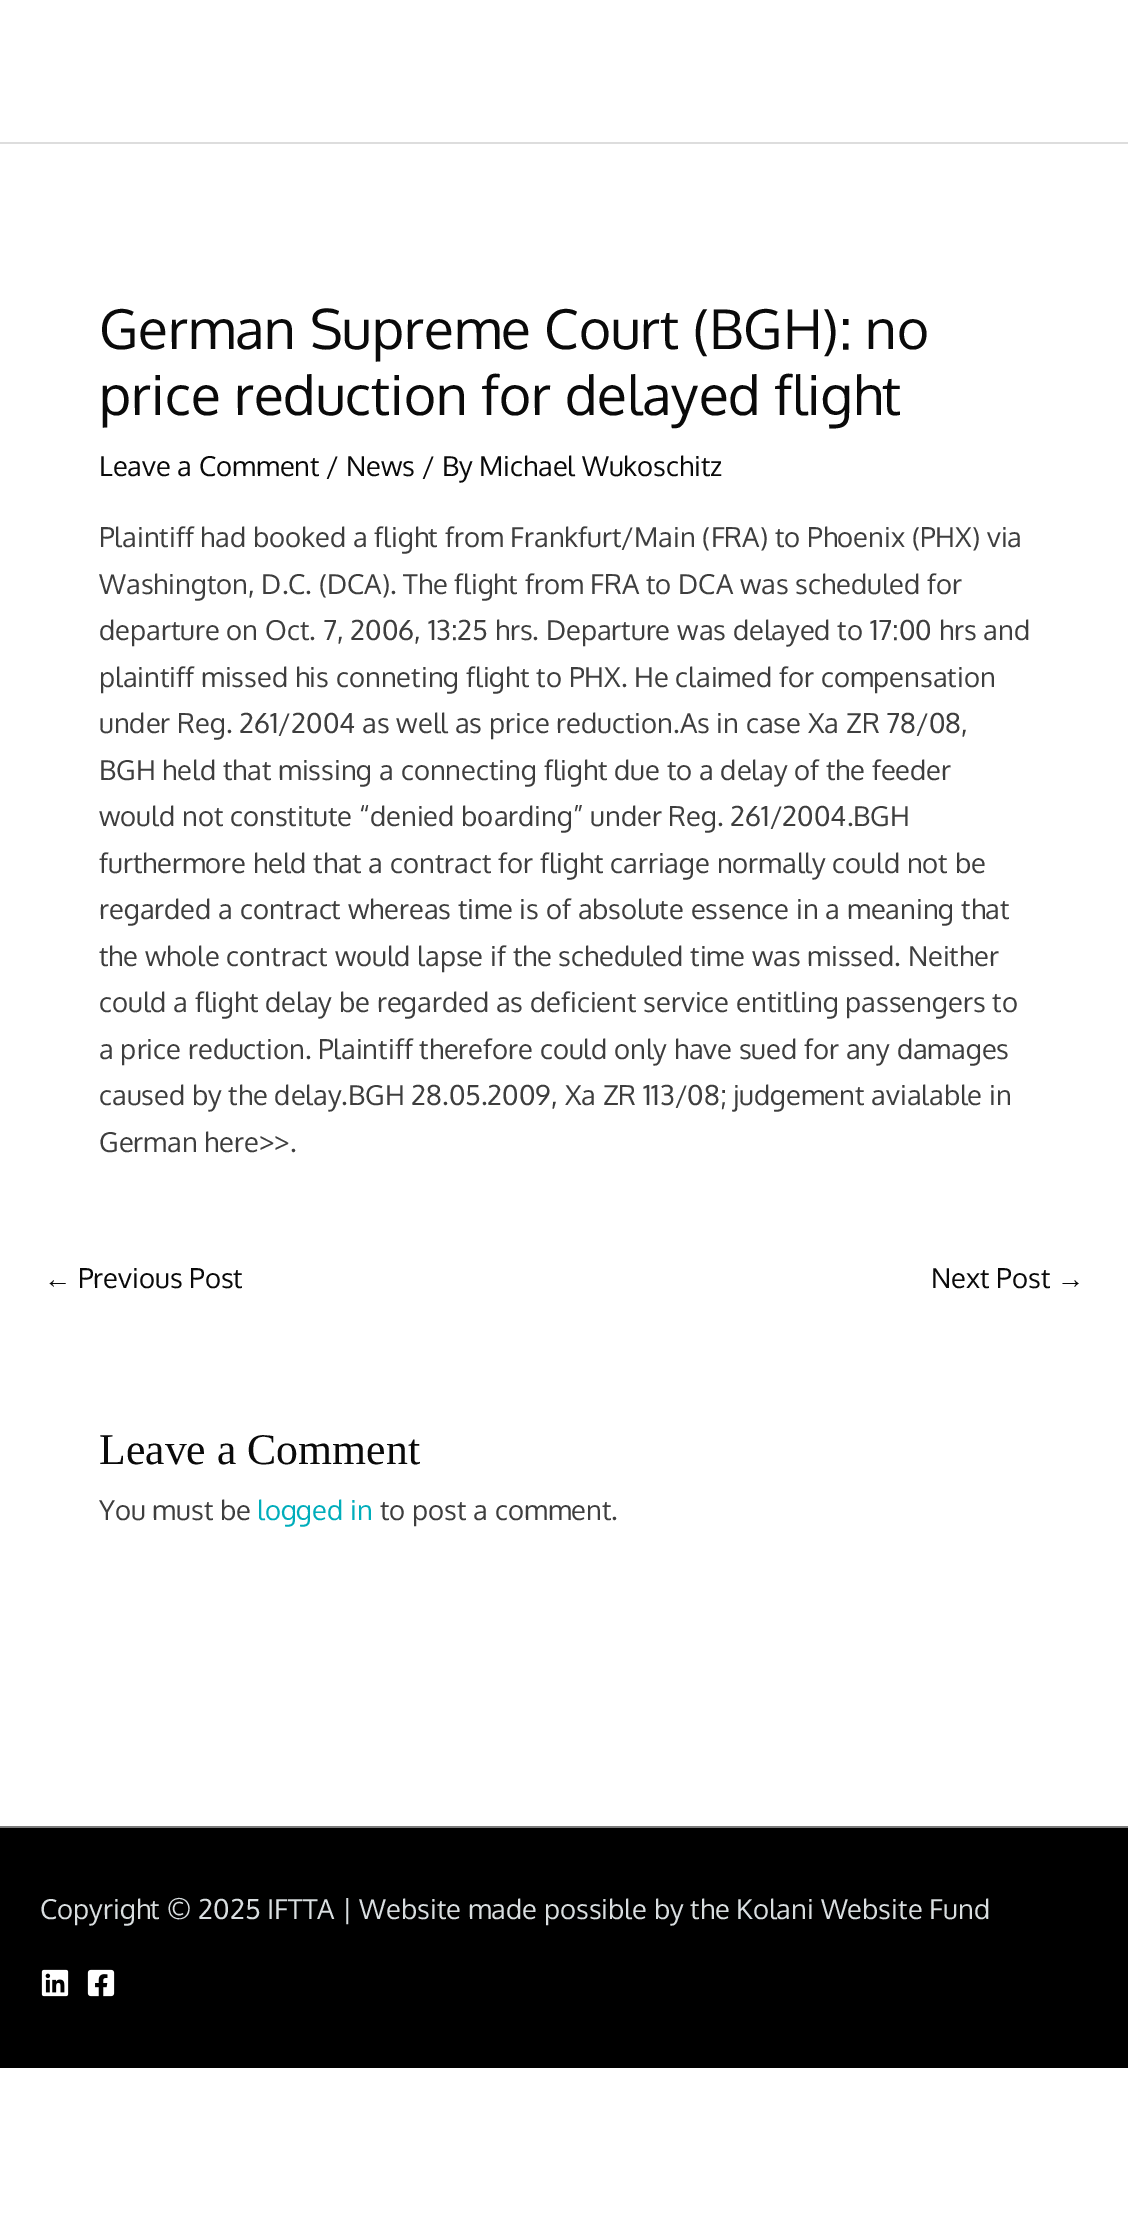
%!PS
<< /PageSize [1128 2240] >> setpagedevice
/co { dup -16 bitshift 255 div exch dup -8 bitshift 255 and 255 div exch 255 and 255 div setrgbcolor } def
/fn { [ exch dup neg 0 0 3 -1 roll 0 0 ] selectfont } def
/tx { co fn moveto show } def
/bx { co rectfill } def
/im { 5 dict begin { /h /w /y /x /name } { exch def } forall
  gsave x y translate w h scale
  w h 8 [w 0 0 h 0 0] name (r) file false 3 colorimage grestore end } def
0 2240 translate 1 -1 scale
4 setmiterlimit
0 0 1128 2240 16#FFFFFF bx
0 142 1128 2 16#DDDDDD bx
0 1826 1128 2 16#7A7A7A bx
0 1828 1128 240 16#000000 bx
(media/1.raw) 41 1969 28 28 im
(media/2.raw) 87 1969 28 28 im
(German Supreme Court \(BGH\): no) 99 349 /Oxygen-Regular 54.75 16#0A0A0A tx
(price reduction for delayed flight) 99 415 /Oxygen-Regular 54.75 16#0A0A0A tx
(Leave a Comment / News / By Michael Wukoschitz) 99 476 /Oxygen-Regular 27.35 16#0A0A0A tx
(Plaintiff had booked a flight from Frankfurt/Main \(FRA\) to Phoenix \(PHX\) via) 99 547 /Oxygen-Regular 27.35 16#3E3E3E tx
(Washington, D.C. \(DCA\). The flight from FRA to DCA was scheduled for) 99 594 /Oxygen-Regular 27.35 16#3E3E3E tx
(departure on Oct. 7, 2006, 13:25 hrs. Departure was delayed to 17:00 hrs and) 99 640 /Oxygen-Regular 27.35 16#3E3E3E tx
(plaintiff missed his conneting flight to PHX.) 99 687 /Oxygen-Regular 27.35 16#3E3E3E tx
(He claimed for compensation) 634 687 /Oxygen-Regular 27.35 16#3E3E3E tx
(under Reg. 261/2004 as well as price reduction.As in case Xa ZR 78/08,) 99 733 /Oxygen-Regular 27.35 16#3E3E3E tx
(BGH held that missing a connecting flight due to a delay of the feeder) 99 780 /Oxygen-Regular 27.35 16#3E3E3E tx
(would not constitute “denied boarding” under Reg. 261/2004.BGH) 99 826 /Oxygen-Regular 27.35 16#3E3E3E tx
(furthermore held that a contract for flight carriage normally could not be) 99 873 /Oxygen-Regular 27.35 16#3E3E3E tx
(regarded a contract whereas time is of absolute essence in a meaning that) 99 919 /Oxygen-Regular 27.35 16#3E3E3E tx
(the whole contract would lapse if the scheduled time was missed. Neither) 99 966 /Oxygen-Regular 27.35 16#3E3E3E tx
(could a flight delay be regarded as deficient service entitling passengers to) 99 1012 /Oxygen-Regular 27.35 16#3E3E3E tx
(a price reduction. Plaintiff therefore could only have sued for any damages) 99 1059 /Oxygen-Regular 27.35 16#3E3E3E tx
(caused by the delay.BGH 28.05.2009, Xa ZR 113/08; judgement avialable in) 99 1105 /Oxygen-Regular 27.35 16#3E3E3E tx
(German here>>.) 99 1152 /Oxygen-Regular 27.35 16#3E3E3E tx
(←) 44 1288 /LiberationSans-Regular 27.35 16#0A0A0A tx
(Previous Post) 78 1288 /Oxygen-Regular 27.35 16#0A0A0A tx
(Next Post) 931 1288 /Oxygen-Regular 27.35 16#0A0A0A tx
(→) 1057 1288 /LiberationSans-Regular 27.35 16#0A0A0A tx
(Leave a Comment) 99 1464 /LiberationSerif-Regular 43.75 16#0A0A0A tx
(You must be) 99 1520 /Oxygen-Regular 27.35 16#3E3E3E tx
(logged in) 257 1520 /Oxygen-Regular 27.35 16#00ADBB tx
(to post a comment.) 380 1520 /Oxygen-Regular 27.35 16#3E3E3E tx
(Copyright © 2025 IFTTA | Website made possible by the Kolani Website Fund) 40 1919 /Oxygen-Regular 27.35 16#D9DEE0 tx
showpage
